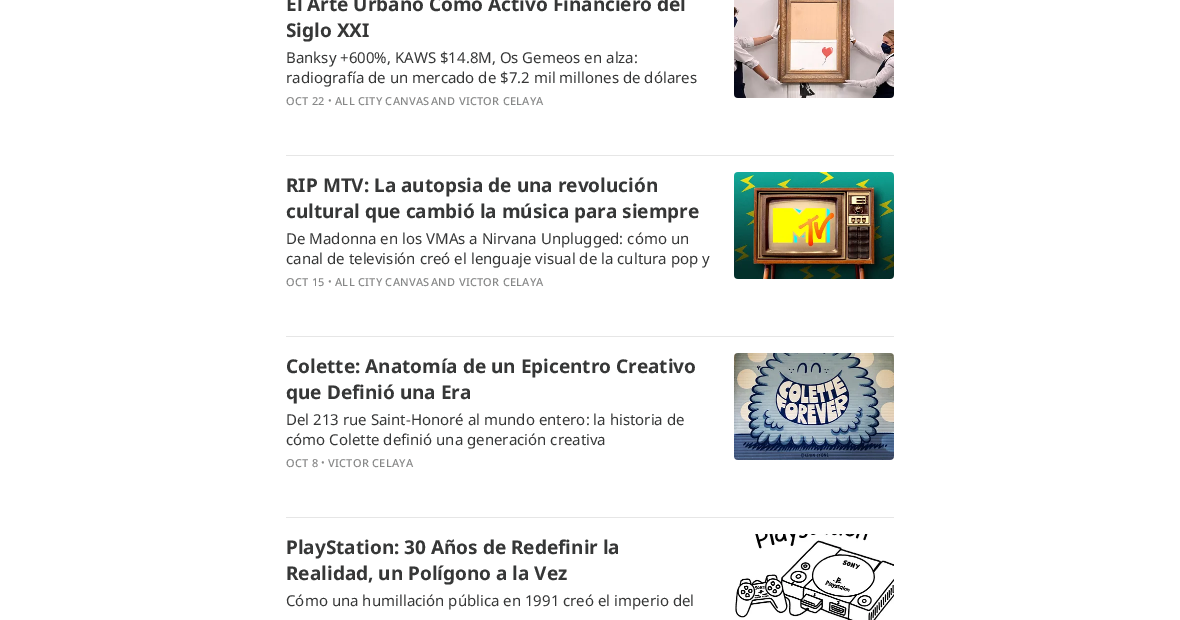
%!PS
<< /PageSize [1180 620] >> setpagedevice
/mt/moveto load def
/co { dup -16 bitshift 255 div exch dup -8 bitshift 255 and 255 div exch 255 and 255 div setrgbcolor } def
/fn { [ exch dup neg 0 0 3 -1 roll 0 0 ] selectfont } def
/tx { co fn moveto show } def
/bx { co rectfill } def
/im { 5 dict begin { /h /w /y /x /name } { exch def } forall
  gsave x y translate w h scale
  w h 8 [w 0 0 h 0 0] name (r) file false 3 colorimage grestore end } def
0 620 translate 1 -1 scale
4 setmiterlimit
0 0 1180 620 16#FFFFFF bx
(media/1.raw) 734 0 160 98 im
286 155 608 1 16#E6E6E6 bx
(media/2.raw) 734 172 160 107 im
286 336 608 1 16#E6E6E6 bx
(media/3.raw) 734 353 160 107 im
286 517 608 1 16#E6E6E6 bx
(media/4.raw) 735 534 159 86 im
(El Arte Urbano Como Activo Financiero del) 286 11 /NotoSans-Bold 19 16#363737 tx
(Siglo XXI) 286 37 /NotoSans-Bold 19 16#363737 tx
(Banksy +600%, KAWS $14.8M, Os Gemeos en alza:) 286 63 /NotoSans-Regular 15 16#363737 tx
(radiografía de un mercado de $7.2 mil millones de dólares) 286 83 /NotoSans-Regular 15 16#363737 tx
/NotoSans-Medium 11 fn
16#868787 co
286 105 mt .25 0 (OCT 22) ashow
/NotoSans-Regular 10 fn
328 104 mt .25 0 (•) ashow
/NotoSans-Medium 11 fn
335 105 mt .25 0 (ALL CITY CANVAS) ashow
431 105 mt .25 0 (AND VICTOR CELAYA) ashow
(RIP MTV: La autopsia de una revolución) 286 192 /NotoSans-Bold 19 16#363737 tx
(cultural que cambió la música para siempre) 286 218 /NotoSans-Bold 19 16#363737 tx
(De Madonna en los VMAs a Nirvana Unplugged: cómo un) 286 244 /NotoSans-Regular 15 16#363737 tx
(canal de televisión creó el lenguaje visual de la cultura pop y) 286 264 /NotoSans-Regular 15 16#363737 tx
/NotoSans-Medium 11 fn
16#868787 co
286 286 mt .25 0 (OCT 15) ashow
/NotoSans-Regular 10 fn
328 285 mt .25 0 (•) ashow
/NotoSans-Medium 11 fn
335 286 mt .25 0 (ALL CITY CANVAS) ashow
431 286 mt .25 0 (AND VICTOR CELAYA) ashow
(Colette: Anatomía de un Epicentro Creativo) 286 373 /NotoSans-Bold 19 16#363737 tx
(que Definió una Era) 286 399 /NotoSans-Bold 19 16#363737 tx
(Del 213 rue Saint-Honoré al mundo entero: la historia de) 286 425 /NotoSans-Regular 15 16#363737 tx
(cómo Colette definió una generación creativa) 286 445 /NotoSans-Regular 15 16#363737 tx
/NotoSans-Medium 11 fn
16#868787 co
286 467 mt .25 0 (OCT 8) ashow
/NotoSans-Regular 10 fn
321 466 mt .25 0 (•) ashow
/NotoSans-Medium 11 fn
328 467 mt .25 0 (VICTOR CELAYA) ashow
(PlayStation: 30 Años de Redefinir la) 286 554 /NotoSans-Bold 19 16#363737 tx
(Realidad, un Polígono a la Vez) 286 580 /NotoSans-Bold 19 16#363737 tx
(Cómo una humillación pública en 1991 creó el imperio del) 286 606 /NotoSans-Regular 15 16#363737 tx
showpage
